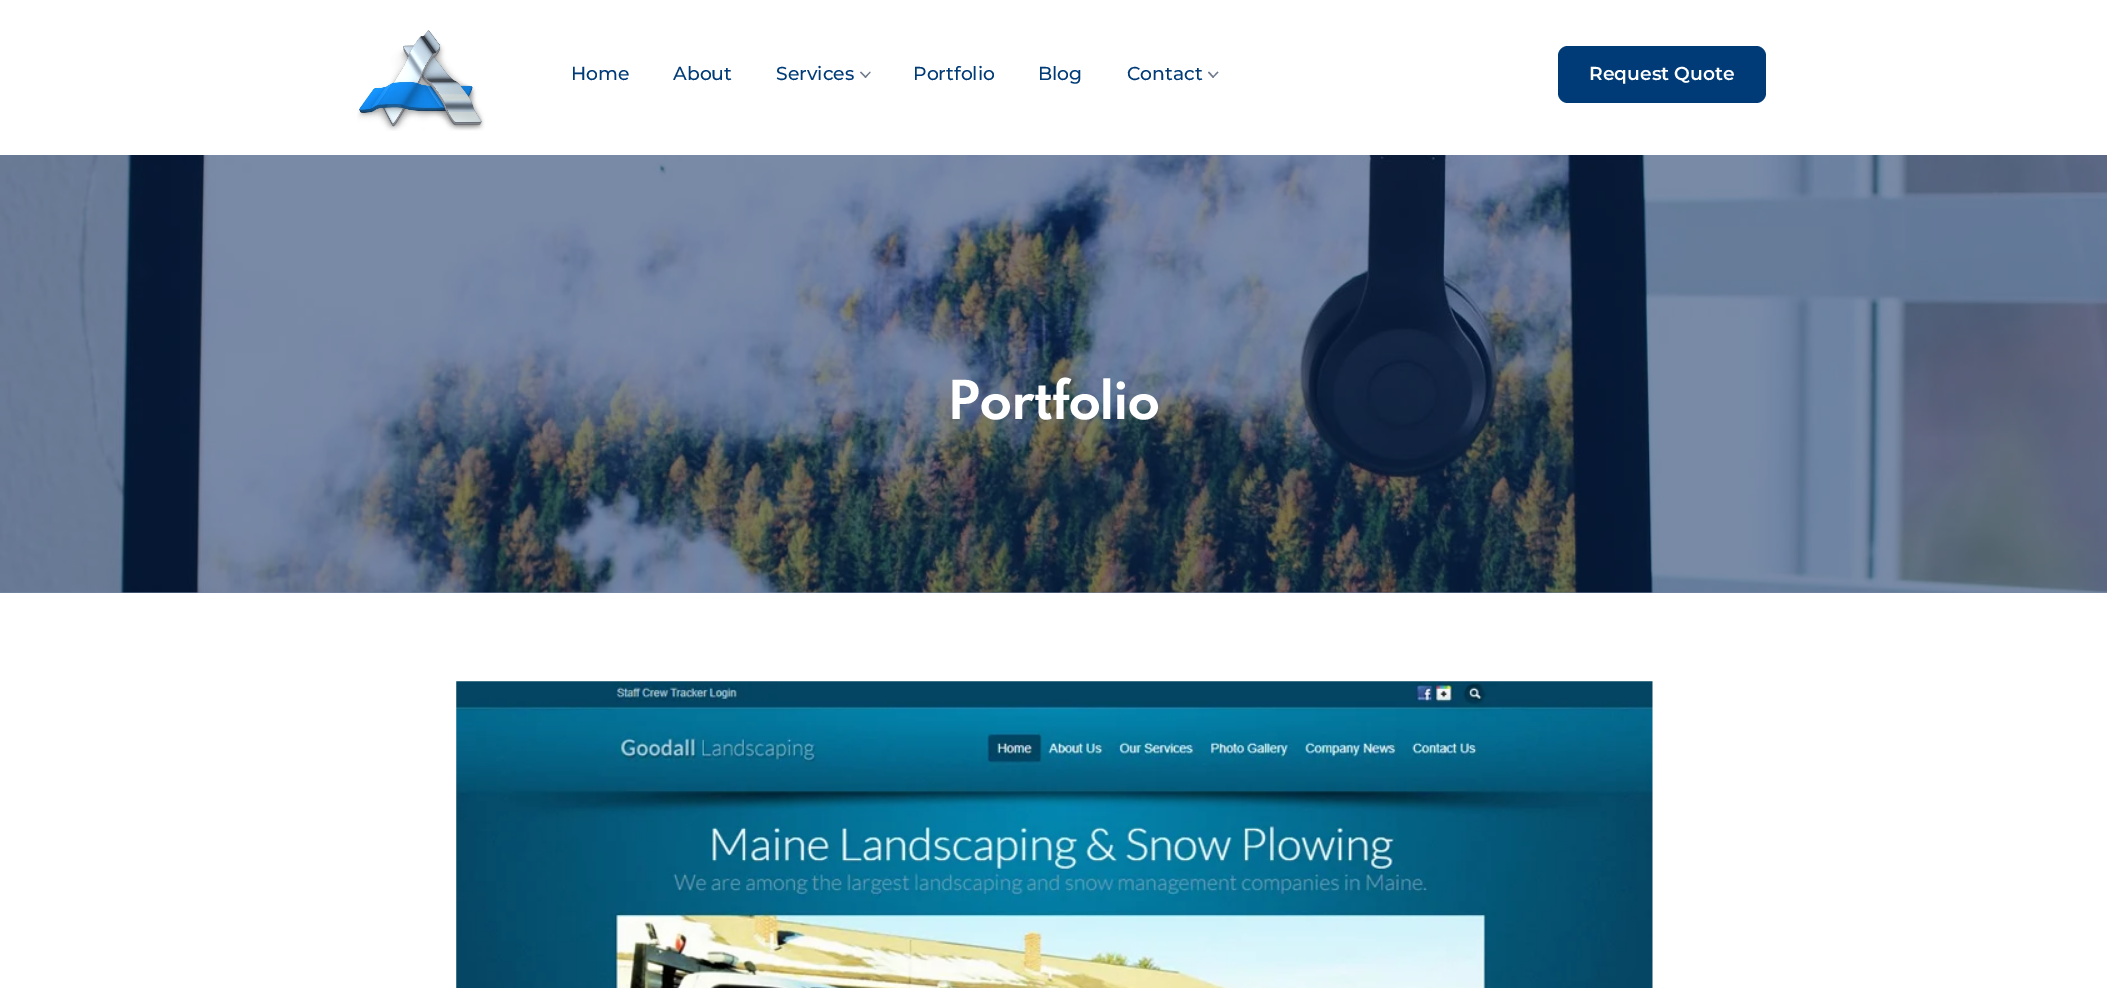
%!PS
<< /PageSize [2107 988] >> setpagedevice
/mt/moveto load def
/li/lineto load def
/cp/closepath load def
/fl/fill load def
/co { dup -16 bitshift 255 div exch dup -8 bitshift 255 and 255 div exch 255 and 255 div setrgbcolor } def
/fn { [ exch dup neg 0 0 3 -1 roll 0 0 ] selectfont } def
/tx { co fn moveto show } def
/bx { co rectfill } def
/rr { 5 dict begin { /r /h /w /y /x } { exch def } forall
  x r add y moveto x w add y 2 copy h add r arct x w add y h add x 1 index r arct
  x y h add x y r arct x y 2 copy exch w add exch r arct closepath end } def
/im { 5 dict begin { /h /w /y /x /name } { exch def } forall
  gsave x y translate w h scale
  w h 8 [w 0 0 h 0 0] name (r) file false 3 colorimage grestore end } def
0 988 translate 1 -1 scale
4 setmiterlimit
0 0 2107 988 16#FFFFFF bx
0 592 2107 1 16#788AA6 bx
(media/1.raw) 357 30 128 101 im
16#70798B co
870 71.5 mt 870.5 72.5 li 865.5 78 li 864.5 77 li cp fl
861 71.5 mt 866.5 77 li 865.5 78 li 860 72.5 li cp fl
1217.5 71.5 mt 1218.5 72.5 li 1213 78 li 1212.5 77 li cp fl
1209 71.5 mt 1214 77 li 1213 78 li 1208 72.5 li cp fl
16#003B77 co
1558 46 208 57 10 rr fl
(media/2.raw) 0 155 2107 438 im
(media/3.raw) 456 681 1197 307 im
(Home) 571 80 /Montserrat-Medium 18.75 16#003B77 tx
(About) 673 80 /Montserrat-Medium 18.75 16#003B77 tx
(Services) 776 80 /Montserrat-Medium 18.75 16#003B77 tx
(Portfolio) 913 80 /Montserrat-Medium 18.75 16#003B77 tx
(Blog) 1038 80 /Montserrat-Medium 18.75 16#003B77 tx
(Contact) 1127 80 /Montserrat-Medium 18.75 16#003B77 tx
(Request Quote) 1589 80 /Montserrat-SemiBold 18.75 16#FFFFFF tx
(Portfolio) 949 419 /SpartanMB-Bold 47.5 16#FFFFFF tx
showpage
